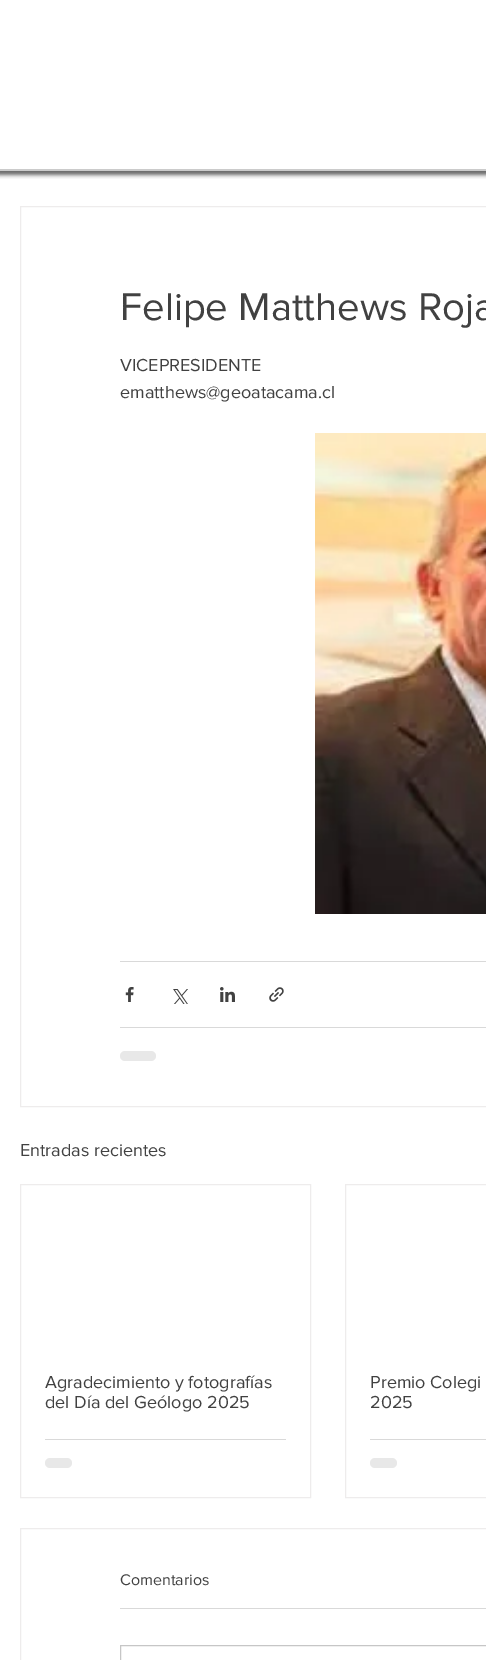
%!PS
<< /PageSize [486 1660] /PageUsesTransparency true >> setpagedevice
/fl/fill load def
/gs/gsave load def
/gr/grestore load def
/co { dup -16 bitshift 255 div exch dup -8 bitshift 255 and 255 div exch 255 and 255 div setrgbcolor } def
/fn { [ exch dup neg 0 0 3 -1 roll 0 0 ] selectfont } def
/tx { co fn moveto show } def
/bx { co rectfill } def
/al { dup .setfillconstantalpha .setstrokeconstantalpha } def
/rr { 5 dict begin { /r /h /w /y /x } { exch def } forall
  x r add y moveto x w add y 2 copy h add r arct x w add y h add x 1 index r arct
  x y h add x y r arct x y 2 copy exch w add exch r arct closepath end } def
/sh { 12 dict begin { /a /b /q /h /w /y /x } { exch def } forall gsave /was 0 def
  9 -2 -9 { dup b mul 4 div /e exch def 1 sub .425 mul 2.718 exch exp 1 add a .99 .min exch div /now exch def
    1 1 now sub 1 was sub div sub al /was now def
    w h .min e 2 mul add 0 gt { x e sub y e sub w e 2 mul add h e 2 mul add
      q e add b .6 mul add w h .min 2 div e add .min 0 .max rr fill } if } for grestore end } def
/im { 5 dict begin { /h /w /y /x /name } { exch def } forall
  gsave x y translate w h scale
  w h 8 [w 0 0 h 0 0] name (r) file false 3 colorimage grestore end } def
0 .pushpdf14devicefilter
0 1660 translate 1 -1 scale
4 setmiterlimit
0 0 486 1660 16#FFFFFF bx
gs
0 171 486 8 rectclip
16#000000 co
-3 4 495 171 0 2 .6 sh
gr
0 169 486 2 16#CBCBCB bx
16#EEECEC co
20.5 206.5 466 900 rectstroke
(media/1.raw) 315 433 171 481 im
120 961 366 1 16#D9D9D9 bx
(media/2.raw) 125 987 9 15 im
(media/3.raw) 173 989 15 15 im
(media/4.raw) 220 987 15 15 im
(media/5.raw) 269 987 15 15 im
120 1027 366 1 16#D9D9D9 bx
16#E8E8E8 co
120 1051 36 10 5 rr fl
16#EEECEC co
20.5 1184.5 290 313 rectstroke
45 1439 241 1 16#D9D9D9 bx
16#E8E8E8 co
45 1458 27 10 5 rr fl
16#EEECEC co
345.5 1184.5 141 313 rectstroke
370 1439 116 1 16#D9D9D9 bx
16#E8E8E8 co
370 1458 27 10 5 rr fl
16#EEECEC co
20.5 1528.5 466 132 rectstroke
120 1608 366 1 16#D9D9D9 bx
16#C6C6C6 co
120.5 1645.5 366 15 rectstroke
(Felipe Matthews Roja) 120 320 /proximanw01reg-Regular 40 16#414141 tx
(VICEPRESIDENTE) 120 371 /proximanw01reg-Regular 18 16#414141 tx
(ematthews@geoatacama.cl) 120 398 /proximanw01reg-Regular 18 16#414141 tx
(Entradas recientes) 20 1156 /proximanw01reg-Regular 18 16#414141 tx
(Agradecimiento y fotografías) 45 1388 /proximanw01reg-Regular 18 16#414141 tx
(del Día del Geólogo 2025) 45 1408 /proximanw01reg-Regular 18 16#414141 tx
(Premio Colegi) 370 1388 /proximanw01reg-Regular 18 16#414141 tx
(2025) 370 1408 /proximanw01reg-Regular 18 16#414141 tx
(Comentarios) 120 1585 /proximanw01reg-Regular 16 16#414141 tx
.poppdf14devicefilter showpage
